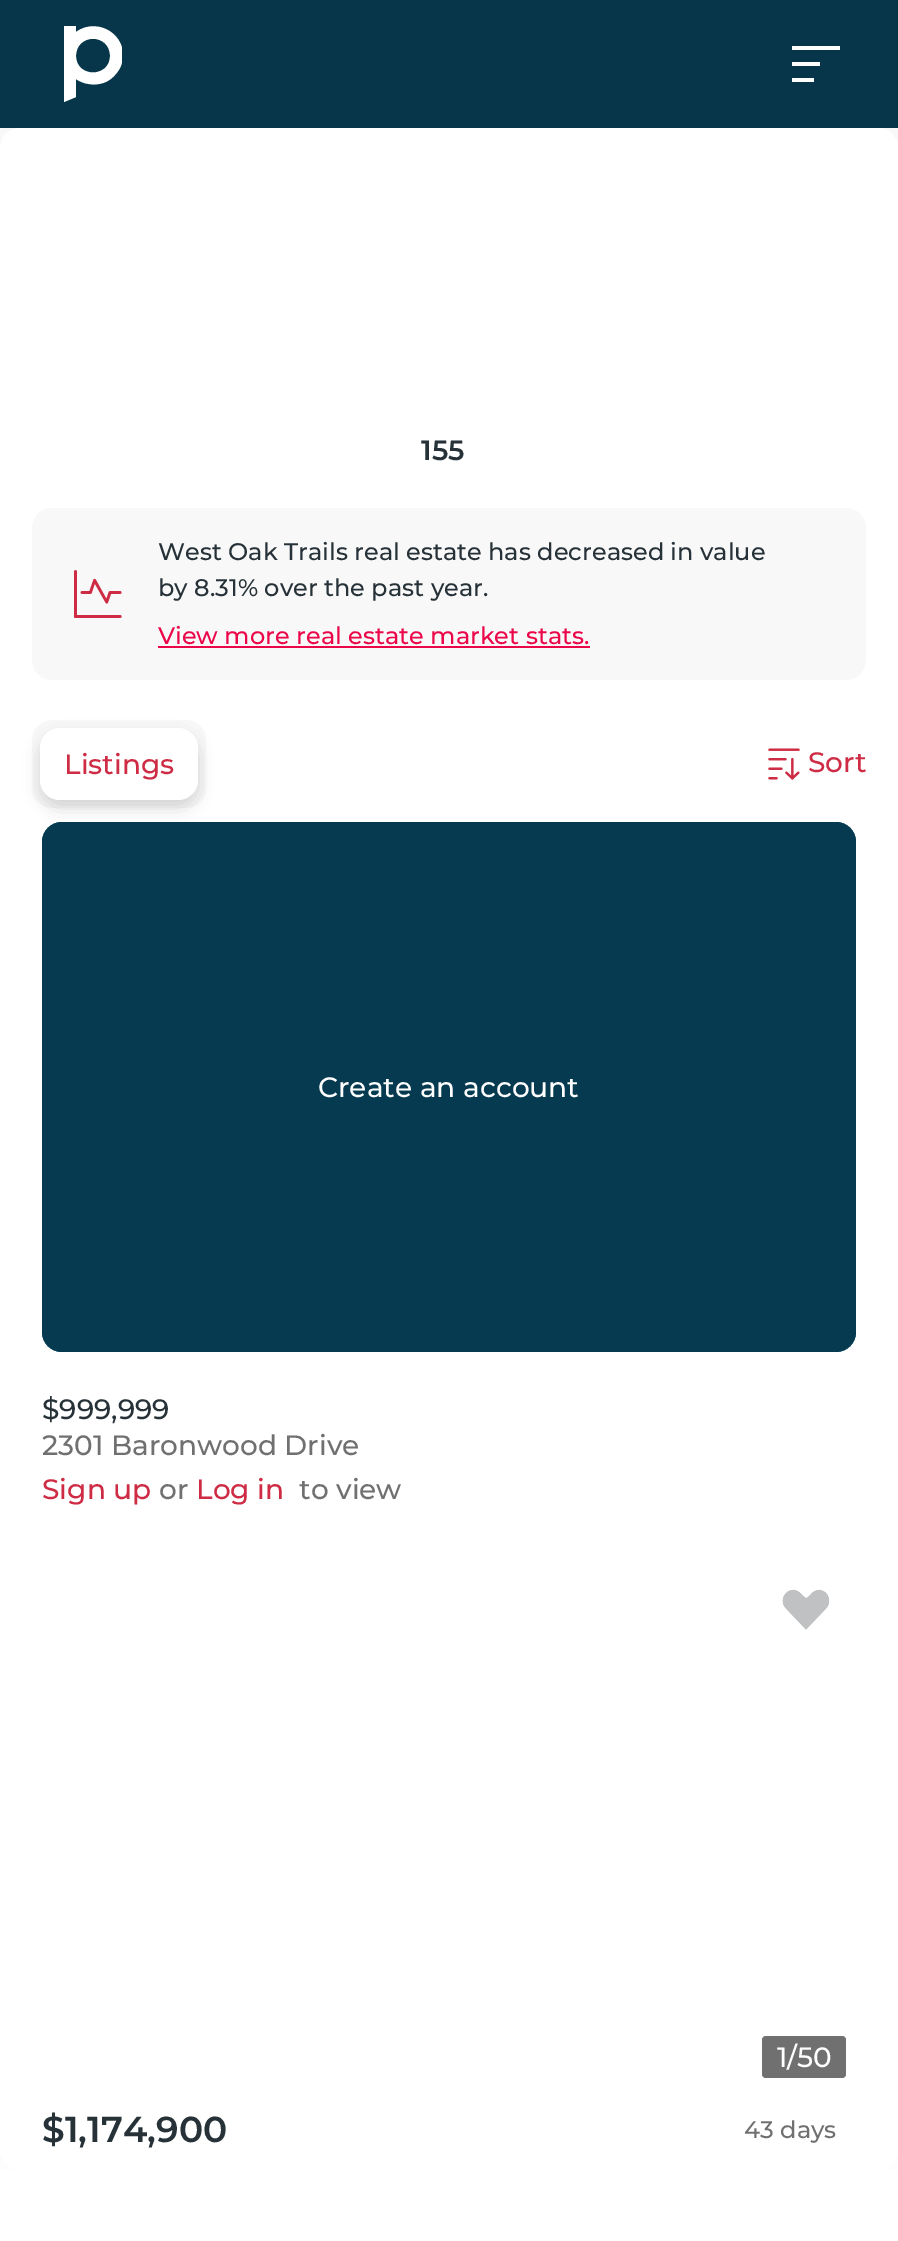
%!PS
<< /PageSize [898 2241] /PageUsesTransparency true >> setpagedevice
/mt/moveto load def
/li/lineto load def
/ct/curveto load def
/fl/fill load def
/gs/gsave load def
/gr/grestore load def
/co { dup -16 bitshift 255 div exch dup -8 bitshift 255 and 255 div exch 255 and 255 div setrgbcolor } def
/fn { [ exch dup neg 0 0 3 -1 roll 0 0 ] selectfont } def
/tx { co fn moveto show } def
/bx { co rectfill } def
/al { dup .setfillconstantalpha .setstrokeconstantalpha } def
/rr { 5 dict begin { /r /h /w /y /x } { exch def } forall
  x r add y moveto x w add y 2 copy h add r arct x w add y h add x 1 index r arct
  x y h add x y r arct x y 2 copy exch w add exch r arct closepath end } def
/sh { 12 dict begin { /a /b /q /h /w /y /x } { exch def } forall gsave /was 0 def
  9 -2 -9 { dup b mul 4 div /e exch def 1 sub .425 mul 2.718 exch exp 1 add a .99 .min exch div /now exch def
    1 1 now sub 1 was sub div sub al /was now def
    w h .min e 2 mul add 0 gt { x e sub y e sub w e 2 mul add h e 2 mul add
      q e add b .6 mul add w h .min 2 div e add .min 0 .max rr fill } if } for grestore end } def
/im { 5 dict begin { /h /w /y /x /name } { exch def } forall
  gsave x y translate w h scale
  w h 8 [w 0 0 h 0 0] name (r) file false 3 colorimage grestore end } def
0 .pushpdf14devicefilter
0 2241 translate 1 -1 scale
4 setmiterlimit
0 0 898 2241 16#FFFFFF bx
gs
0 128 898 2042 rectclip
16#000000 co
0 118 898 2042 20 15 .06 sh
gr
0 0 898 128 16#07364B bx
gs
64 26 58 76 rectclip
16#FFFFFF co
76 56 mt 76 33 110 33 110 56 ct 110 78 76 78 76 56 ct 76 32 mt 76 26 li 64 26 li 64 102 li 76 97 li 76 79 li 83 84 94 86 103 83 ct 110 81 116 75 120 68 ct 133 39 100 15 76 32 ct fl
gr
792 46 48 4 16#FFFFFF bx
792 62 28 4 16#FFFFFF bx
792 78 22 4 16#FFFFFF bx
0 128 898 2042 20 rr fl
16#F8F8F8 co
32 508 834 172 20 rr fl
(media/1.raw) 74 570 48 48 im
158 646 432 2 16#EA0649 bx
16#F8F8F8 co
32 720 174 88 20 rr fl
16#000000 co
40 736 158 72 20 8 .15 sh
16#FFFFFF co
40 728 158 72 20 rr fl
(media/2.raw) 768 748 32 32 im
16#0F546F co
42 822 814 530 20 rr fl
0.8 al
16#023448 co
42 822 814 530 20 rr fl
1 al
(media/3.raw) 782 1589 48 41 im
16#707070 co
762 2036 84 42 4 rr fl
(155) 421 460 /Montserrat-SemiBold 28 16#263238 tx
(West Oak Trails real estate has decreased in value) 158 560 /Montserrat-Medium 24 16#263238 tx
(by 8.31% over the past year.) 158 596 /Montserrat-Medium 24 16#263238 tx
(View more real estate market stats.) 158 644 /Montserrat-Medium 24 16#EA0649 tx
(Listings) 64 774 /Montserrat-Medium 28 16#CE2C44 tx
(Sort) 808 772 /Montserrat-Medium 28 16#CE2C44 tx
(Create an account) 318 1097 /Montserrat-Medium 28 16#FFFFFF tx
($999,999) 42 1419 /Montserrat-Medium 28 16#263238 tx
(2301 Baronwood Drive) 42 1455 /Montserrat-Medium 28 16#707070 tx
(Sign up) 42 1499 /Montserrat-Medium 28 16#CE2C44 tx
(or) 159 1499 /Montserrat-Medium 28 16#707070 tx
(Log in) 196 1499 /Montserrat-Medium 28 16#CE2C44 tx
(to view) 299 1499 /Montserrat-Medium 28 16#707070 tx
(1/50) 777 2067 /Montserrat-Medium 28 16#FFFFFF tx
($1,174,900) 42 2142 /Montserrat-SemiBold 36 16#263238 tx
(43 days) 744 2138 /Montserrat-Medium 24 16#707070 tx
.poppdf14devicefilter showpage
